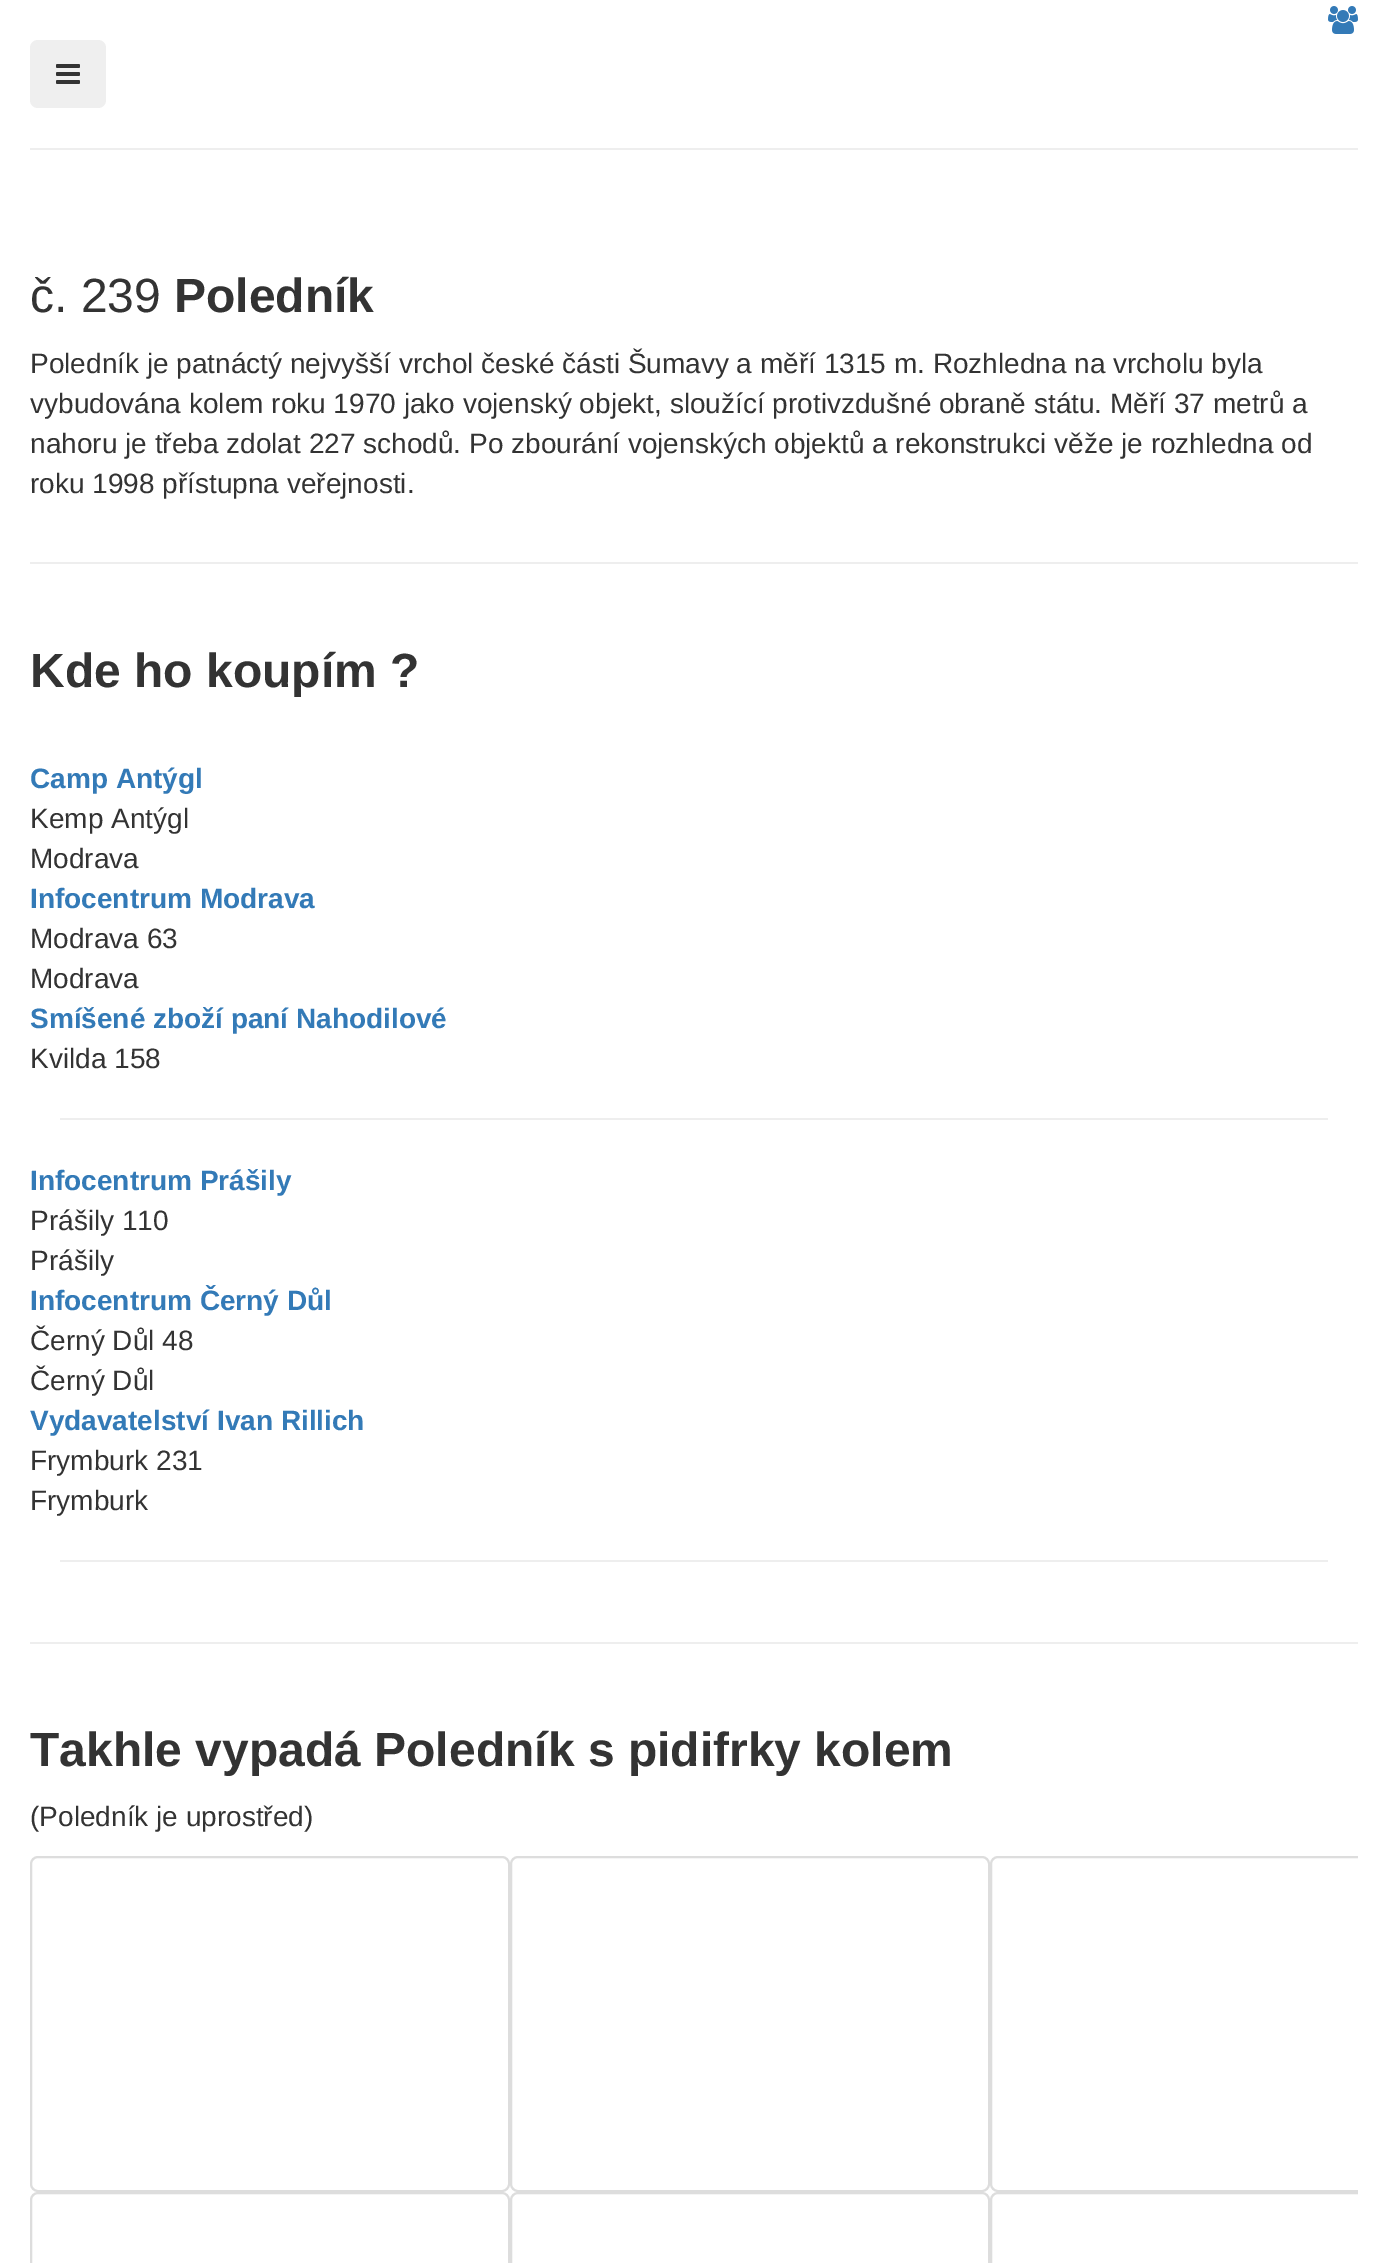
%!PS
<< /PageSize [1387 2263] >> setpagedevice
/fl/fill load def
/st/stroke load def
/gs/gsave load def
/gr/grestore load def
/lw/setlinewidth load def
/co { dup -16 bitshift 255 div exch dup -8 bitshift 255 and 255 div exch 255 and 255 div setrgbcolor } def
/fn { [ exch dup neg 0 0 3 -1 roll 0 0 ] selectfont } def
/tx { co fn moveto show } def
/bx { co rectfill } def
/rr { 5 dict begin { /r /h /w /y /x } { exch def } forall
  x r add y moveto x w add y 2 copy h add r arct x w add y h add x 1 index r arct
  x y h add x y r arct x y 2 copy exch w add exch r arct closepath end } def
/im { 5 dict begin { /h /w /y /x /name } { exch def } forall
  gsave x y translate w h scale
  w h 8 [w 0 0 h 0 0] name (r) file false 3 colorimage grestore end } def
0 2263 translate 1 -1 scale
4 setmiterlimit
0 0 1387 2263 16#FFFFFF bx
(media/1.raw) 1328 6 30 28 im
16#EFEFEF co
30 40 76 68 8 rr fl
(media/2.raw) 56 64 24 20 im
30 148 1328 2 16#EEEEEE bx
30 562 1328 2 16#EEEEEE bx
60 1118 1268 2 16#EEEEEE bx
60 1560 1268 2 16#EEEEEE bx
30 1642 1328 2 16#EEEEEE bx
16#DDDDDD co
2 lw
31 1857 478 334 7 rr st
511 1857 478 334 7 rr st
gs
30 1856 1328 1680 rectclip
991 1857 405 334 7 rr st
gr
31 2193 478 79 7 rr st
511 2193 478 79 7 rr st
gs
30 1856 1328 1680 rectclip
991 2193 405 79 7 rr st
gr
(č. 239) 30 312 /LiberationSans-Regular 48 16#333333 tx
(Poledník) 174 312 /LiberationSans-Bold 48 16#333333 tx
(Poledník je patnáctý nejvyšší vrchol české části Šumavy a měří 1315 m. Rozhledna na vrcholu byla) 30 373 /LiberationSans-Regular 28 16#333333 tx
(vybudována kolem roku 1970 jako vojenský objekt, sloužící protivzdušné obraně státu. Měří 37 metrů a) 30 413 /LiberationSans-Regular 28 16#333333 tx
(nahoru je třeba zdolat 227 schodů. Po zbourání vojenských objektů a rekonstrukci věže je rozhledna od) 30 453 /LiberationSans-Regular 28 16#333333 tx
(roku 1998 přístupna veřejnosti.) 30 493 /LiberationSans-Regular 28 16#333333 tx
(Kde ho koupím ?) 30 687 /LiberationSans-Bold 48 16#333333 tx
(Camp Antýgl) 30 788 /LiberationSans-Bold 28 16#337AB7 tx
(Kemp Antýgl) 30 828 /LiberationSans-Regular 28 16#333333 tx
(Modrava) 30 868 /LiberationSans-Regular 28 16#333333 tx
(Infocentrum Modrava) 30 908 /LiberationSans-Bold 28 16#337AB7 tx
(Modrava 63) 30 948 /LiberationSans-Regular 28 16#333333 tx
(Modrava) 30 988 /LiberationSans-Regular 28 16#333333 tx
(Smíšené zboží paní Nahodilové) 30 1028 /LiberationSans-Bold 28 16#337AB7 tx
(Kvilda 158) 30 1068 /LiberationSans-Regular 28 16#333333 tx
(Infocentrum Prášily) 30 1190 /LiberationSans-Bold 28 16#337AB7 tx
(Prášily 110) 30 1230 /LiberationSans-Regular 28 16#333333 tx
(Prášily) 30 1270 /LiberationSans-Regular 28 16#333333 tx
(Infocentrum Černý Důl) 30 1310 /LiberationSans-Bold 28 16#337AB7 tx
(Černý Důl 48) 30 1350 /LiberationSans-Regular 28 16#333333 tx
(Černý Důl) 30 1390 /LiberationSans-Regular 28 16#333333 tx
(Vydavatelství Ivan Rillich) 30 1430 /LiberationSans-Bold 28 16#337AB7 tx
(Frymburk 231) 30 1470 /LiberationSans-Regular 28 16#333333 tx
(Frymburk) 30 1510 /LiberationSans-Regular 28 16#333333 tx
(Takhle vypadá Poledník s pidifrky kolem) 30 1766 /LiberationSans-Bold 48 16#333333 tx
(\(Poledník je uprostřed\)) 30 1826 /LiberationSans-Regular 28 16#333333 tx
showpage
